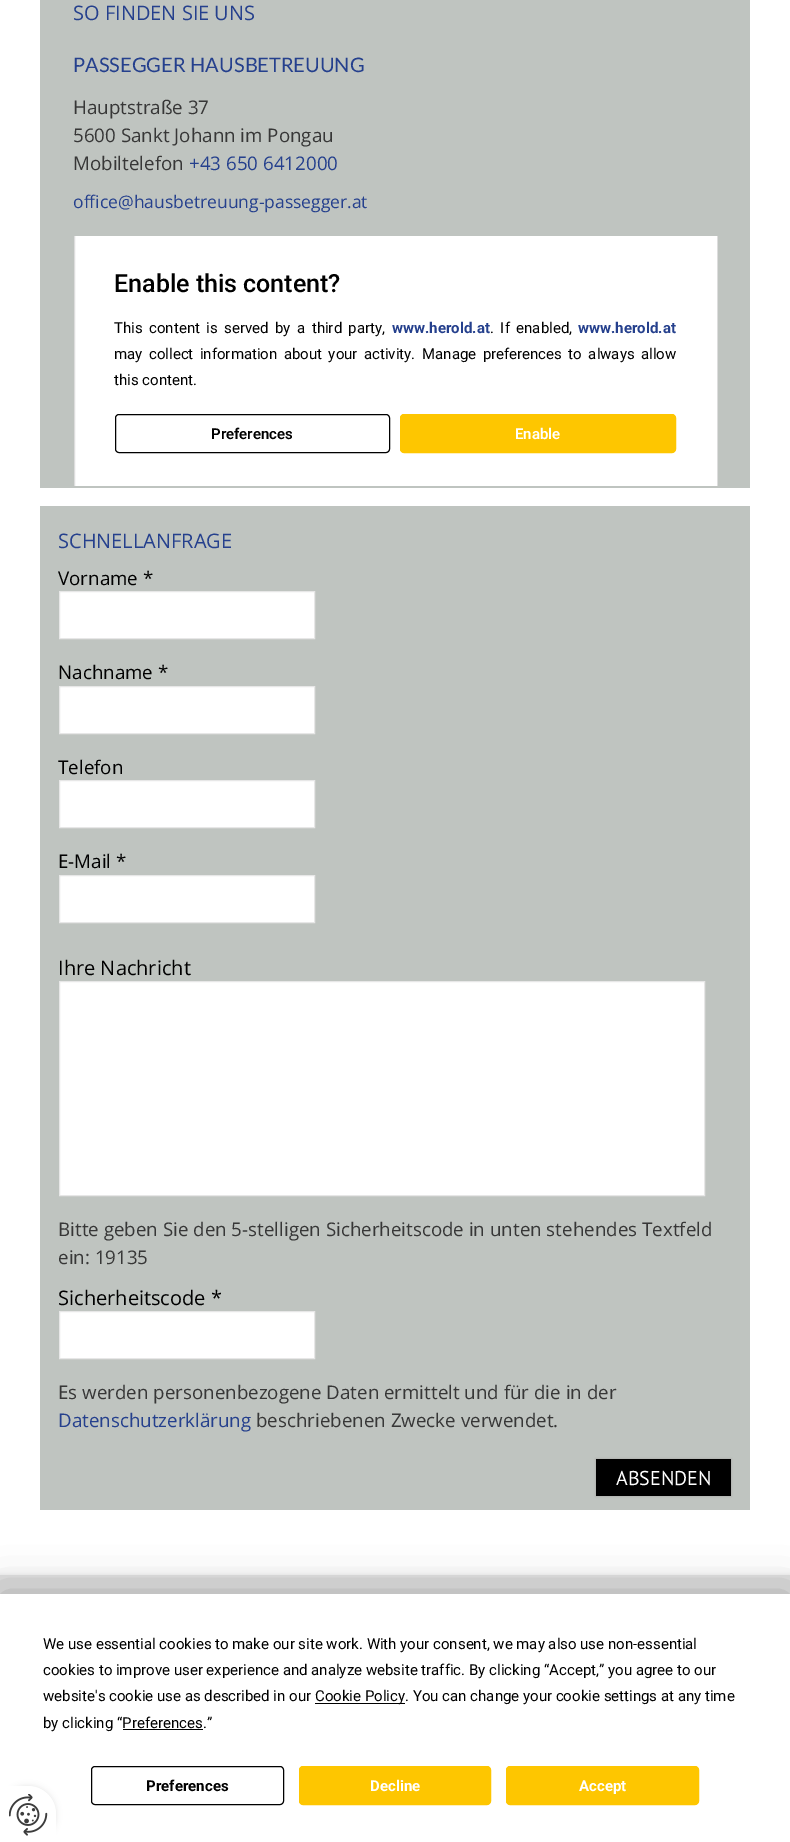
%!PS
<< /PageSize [790 1842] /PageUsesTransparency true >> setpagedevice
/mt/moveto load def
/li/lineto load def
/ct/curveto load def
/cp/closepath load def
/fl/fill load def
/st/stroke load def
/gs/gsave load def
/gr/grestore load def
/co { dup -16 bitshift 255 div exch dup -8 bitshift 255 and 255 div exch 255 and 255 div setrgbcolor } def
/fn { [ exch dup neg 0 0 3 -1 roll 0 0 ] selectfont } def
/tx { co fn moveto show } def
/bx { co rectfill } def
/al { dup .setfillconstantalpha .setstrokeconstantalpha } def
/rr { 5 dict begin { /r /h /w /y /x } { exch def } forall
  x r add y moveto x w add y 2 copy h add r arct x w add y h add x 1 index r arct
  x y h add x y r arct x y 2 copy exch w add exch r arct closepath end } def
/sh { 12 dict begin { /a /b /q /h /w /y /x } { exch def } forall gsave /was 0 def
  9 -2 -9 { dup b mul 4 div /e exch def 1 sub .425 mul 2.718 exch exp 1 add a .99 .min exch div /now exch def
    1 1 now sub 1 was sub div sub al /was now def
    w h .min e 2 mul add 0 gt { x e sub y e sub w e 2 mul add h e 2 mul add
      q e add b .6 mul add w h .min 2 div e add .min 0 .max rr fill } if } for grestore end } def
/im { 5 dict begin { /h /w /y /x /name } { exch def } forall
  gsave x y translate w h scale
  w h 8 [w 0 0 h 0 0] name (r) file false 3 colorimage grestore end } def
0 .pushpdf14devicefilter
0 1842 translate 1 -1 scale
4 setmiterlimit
0 0 790 1842 16#FFFFFF bx
40 0 710 488 16#BFC4C0 bx
75 236 642 250 16#FFFFFF bx
gs
74 236 644 250 rectclip
16#DDDDDD co
74.5 229.5 643 264 5.5 rr st
gr
16#000000 co
115.5 414.5 274 38 3.5 rr st
16#FEC600 co
400.5 414.5 275 38 3.5 rr gs fl gr
st
40 506 710 1004 16#BFC4C0 bx
16#FFFFFF co
59.5 591.5 mt 314.5 591.5 li 314.5 638.5 li 59.5 638.5 li cp gs fl gr
16#E7E7E7 co
st
16#FFFFFF co
59.5 686.5 mt 314.5 686.5 li 314.5 733.5 li 59.5 733.5 li cp gs fl gr
16#E7E7E7 co
st
16#FFFFFF co
59.5 780.5 mt 314.5 780.5 li 314.5 827.5 li 59.5 827.5 li cp gs fl gr
16#E7E7E7 co
st
16#FFFFFF co
59.5 875.5 mt 314.5 875.5 li 314.5 922.5 li 59.5 922.5 li cp gs fl gr
16#E7E7E7 co
st
16#FFFFFF co
59.5 981.5 mt 704.5 981.5 li 704.5 1195.5 li 59.5 1195.5 li cp gs fl gr
16#E7E7E7 co
st
16#FFFFFF co
59.5 1311.5 mt 314.5 1311.5 li 314.5 1358.5 li 59.5 1358.5 li cp gs fl gr
16#E7E7E7 co
st
16#000000 co
596 1459 135 37 0 1 .2 sh
596 1459 135 37 16#000000 bx
0 1575 790 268 0 3 .1 sh
0 1575 790 19 16#DFDFDF bx
16#000000 co
0 1594 790 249 0 22 .25 sh
0 1594 790 248 16#FFFFFF bx
315 1703 90 1 16#000000 bx
123 1729 80 1 16#000000 bx
91.5 1766.5 192 38 3.5 rr st
16#FEC600 co
299.5 1766.5 191 38 3.5 rr gs fl gr
st
506.5 1766.5 192 38 3.5 rr gs fl gr
st
16#000000 co
0 1786 56 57 28 3 .1 sh
16#FFFFFF co
0 1786 mt 28 1786 li 43.5 1786 56 1798.5 56 1814 ct 56 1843 li 0 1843 li cp fl
(media/1.raw) 9 1794 39 42 im
(SO FINDEN SIE UNS) 73 20 /OpenSans-Regular 20 16#25408D tx
(PASSEGGER HAUSBETREUUNG) 73 72 /Lato-Regular 20 16#25408D tx
(Hauptstraße 37) 73 114 /OpenSans-Regular 18.75 16#373737 tx
(5600 Sankt Johann im Pongau) 73 142 /OpenSans-Regular 18.75 16#373737 tx
(Mobiltelefon) 73 170 /OpenSans-Regular 18.75 16#373737 tx
(+43 650 6412000) 189 170 /OpenSans-Regular 18.75 16#25408D tx
(office@hausbetreuung-passegger.at) 73 208 /OpenSans-Regular 17.5 16#25408D tx
(Enable this content?) 114 292 /Roboto-Medium 25 16#000000 tx
/Roboto-Regular 15 fn
114 333 mt 2.75 0 32 (This content is served by a third party,) widthshow
(www.herold.at) 392 333 /Roboto-Bold 15 16#25408D tx
/Roboto-Regular 15 fn
16#000000 co
490 333 mt 2.75 0 32 (. If enabled,) widthshow
(www.herold.at) 578 333 /Roboto-Bold 15 16#25408D tx
/Roboto-Regular 15 fn
16#000000 co
114 359 mt 2.75 0 32 (may collect information about your activity.) widthshow
422 359 mt 2.75 0 32 (Manage preferences to always allow) widthshow
(this content.) 114 385 /Roboto-Regular 15 16#000000 tx
(Preferences) 211 439 /Roboto-SemiBold 15 16#000000 tx
(Enable) 515 439 /Roboto-SemiBold 15 16#FFFFFF tx
(SCHNELLANFRAGE) 58 548 /OpenSans-Regular 20 16#25408D tx
(Vorname *) 58 585 /OpenSans-Regular 18.75 16#000000 tx
(Nachname *) 58 679 /OpenSans-Regular 18.75 16#000000 tx
(Telefon) 58 774 /OpenSans-Regular 18.75 16#000000 tx
(E-Mail *) 58 868 /OpenSans-Regular 18.75 16#000000 tx
(Ihre Nachricht) 58 975 /OpenSans-Regular 20 16#000000 tx
(Bitte geben Sie den 5-stelligen Sicherheitscode in unten stehendes Textfeld) 58 1236 /OpenSans-Regular 18.75 16#373737 tx
(ein: 19135) 58 1264 /OpenSans-Regular 18.75 16#373737 tx
(Sicherheitscode *) 58 1305 /OpenSans-Regular 20 16#000000 tx
(Es werden personenbezogene Daten ermittelt und für die in der) 58 1399 /OpenSans-Regular 18.75 16#373737 tx
(Datenschutzerklärung) 58 1427 /OpenSans-Regular 18.75 16#25408D tx
(beschriebenen Zwecke verwendet.) 256 1427 /OpenSans-Regular 18.75 16#373737 tx
(ABSENDEN) 616 1485 /PTSans-Regular 20 16#FFFFFF tx
(We use essential cookies to make our site work. With your consent, we may also use non-essential) 43 1649 /Roboto-Regular 15 16#000000 tx
(cookies to improve user experience and analyze website traffic. By clicking “Accept,” you agree to our) 43 1675 /Roboto-Regular 15 16#000000 tx
(website's cookie use as described in our) 43 1701 /Roboto-Regular 15 16#000000 tx
(Cookie Policy. You can change your cookie settings at any time) 315 1701 /Roboto-Regular 15 16#000000 tx
(by clicking “Preferences.”) 43 1728 /Roboto-Regular 15 16#000000 tx
(Preferences) 146 1791 /Roboto-Bold 15 16#000000 tx
(Decline) 370 1791 /Roboto-Bold 15 16#FFFFFF tx
(Accept) 579 1791 /Roboto-Bold 15 16#FFFFFF tx
.poppdf14devicefilter showpage
